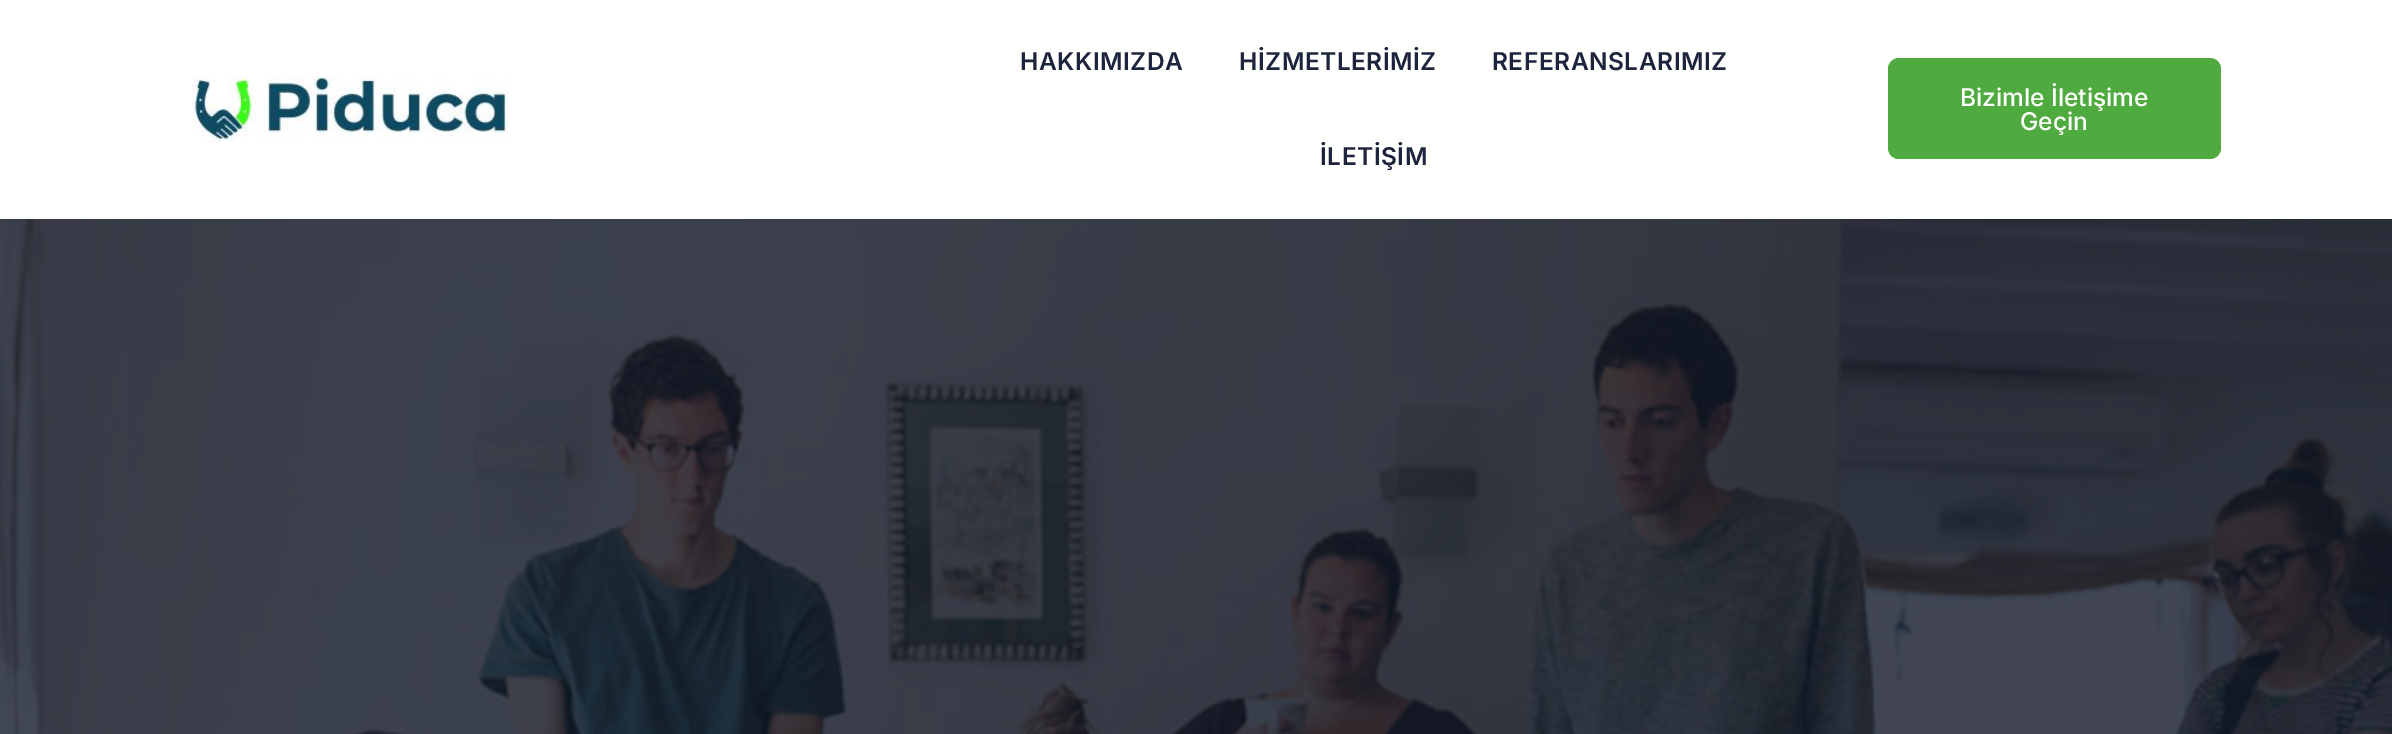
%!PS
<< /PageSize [2392 734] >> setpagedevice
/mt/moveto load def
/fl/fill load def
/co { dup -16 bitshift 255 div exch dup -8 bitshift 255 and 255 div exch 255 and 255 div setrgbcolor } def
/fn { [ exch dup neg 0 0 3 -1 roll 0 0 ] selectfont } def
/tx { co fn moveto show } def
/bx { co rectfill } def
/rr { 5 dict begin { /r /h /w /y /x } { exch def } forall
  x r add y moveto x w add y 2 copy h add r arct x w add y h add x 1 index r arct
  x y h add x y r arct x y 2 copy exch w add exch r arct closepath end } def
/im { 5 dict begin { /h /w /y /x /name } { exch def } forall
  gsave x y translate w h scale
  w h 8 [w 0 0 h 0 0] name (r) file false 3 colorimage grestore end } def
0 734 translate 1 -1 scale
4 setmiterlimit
0 0 2392 734 16#FFFFFD bx
(media/1.raw) 192 75 317 67 im
16#4FAA3F co
1888 58 333 101 11 rr fl
(media/2.raw) 0 218 2392 516 im
/Inter-SemiBold 24.5 fn
16#1D243D co
1020 70 mt .5 0 (HAKKIMIZDA) ashow
1239 70 mt .5 0 (HİZMETLERİMİZ) ashow
1492 70 mt .5 0 (REFERANSLARIMIZ) ashow
1320 165 mt .5 0 (İLETİŞİM) ashow
(Bizimle İletişime) 1960 106 /Inter-Medium 24.5 16#FFFFFE tx
(Geçin) 2020 130 /Inter-Medium 24.5 16#FFFFFE tx
showpage
